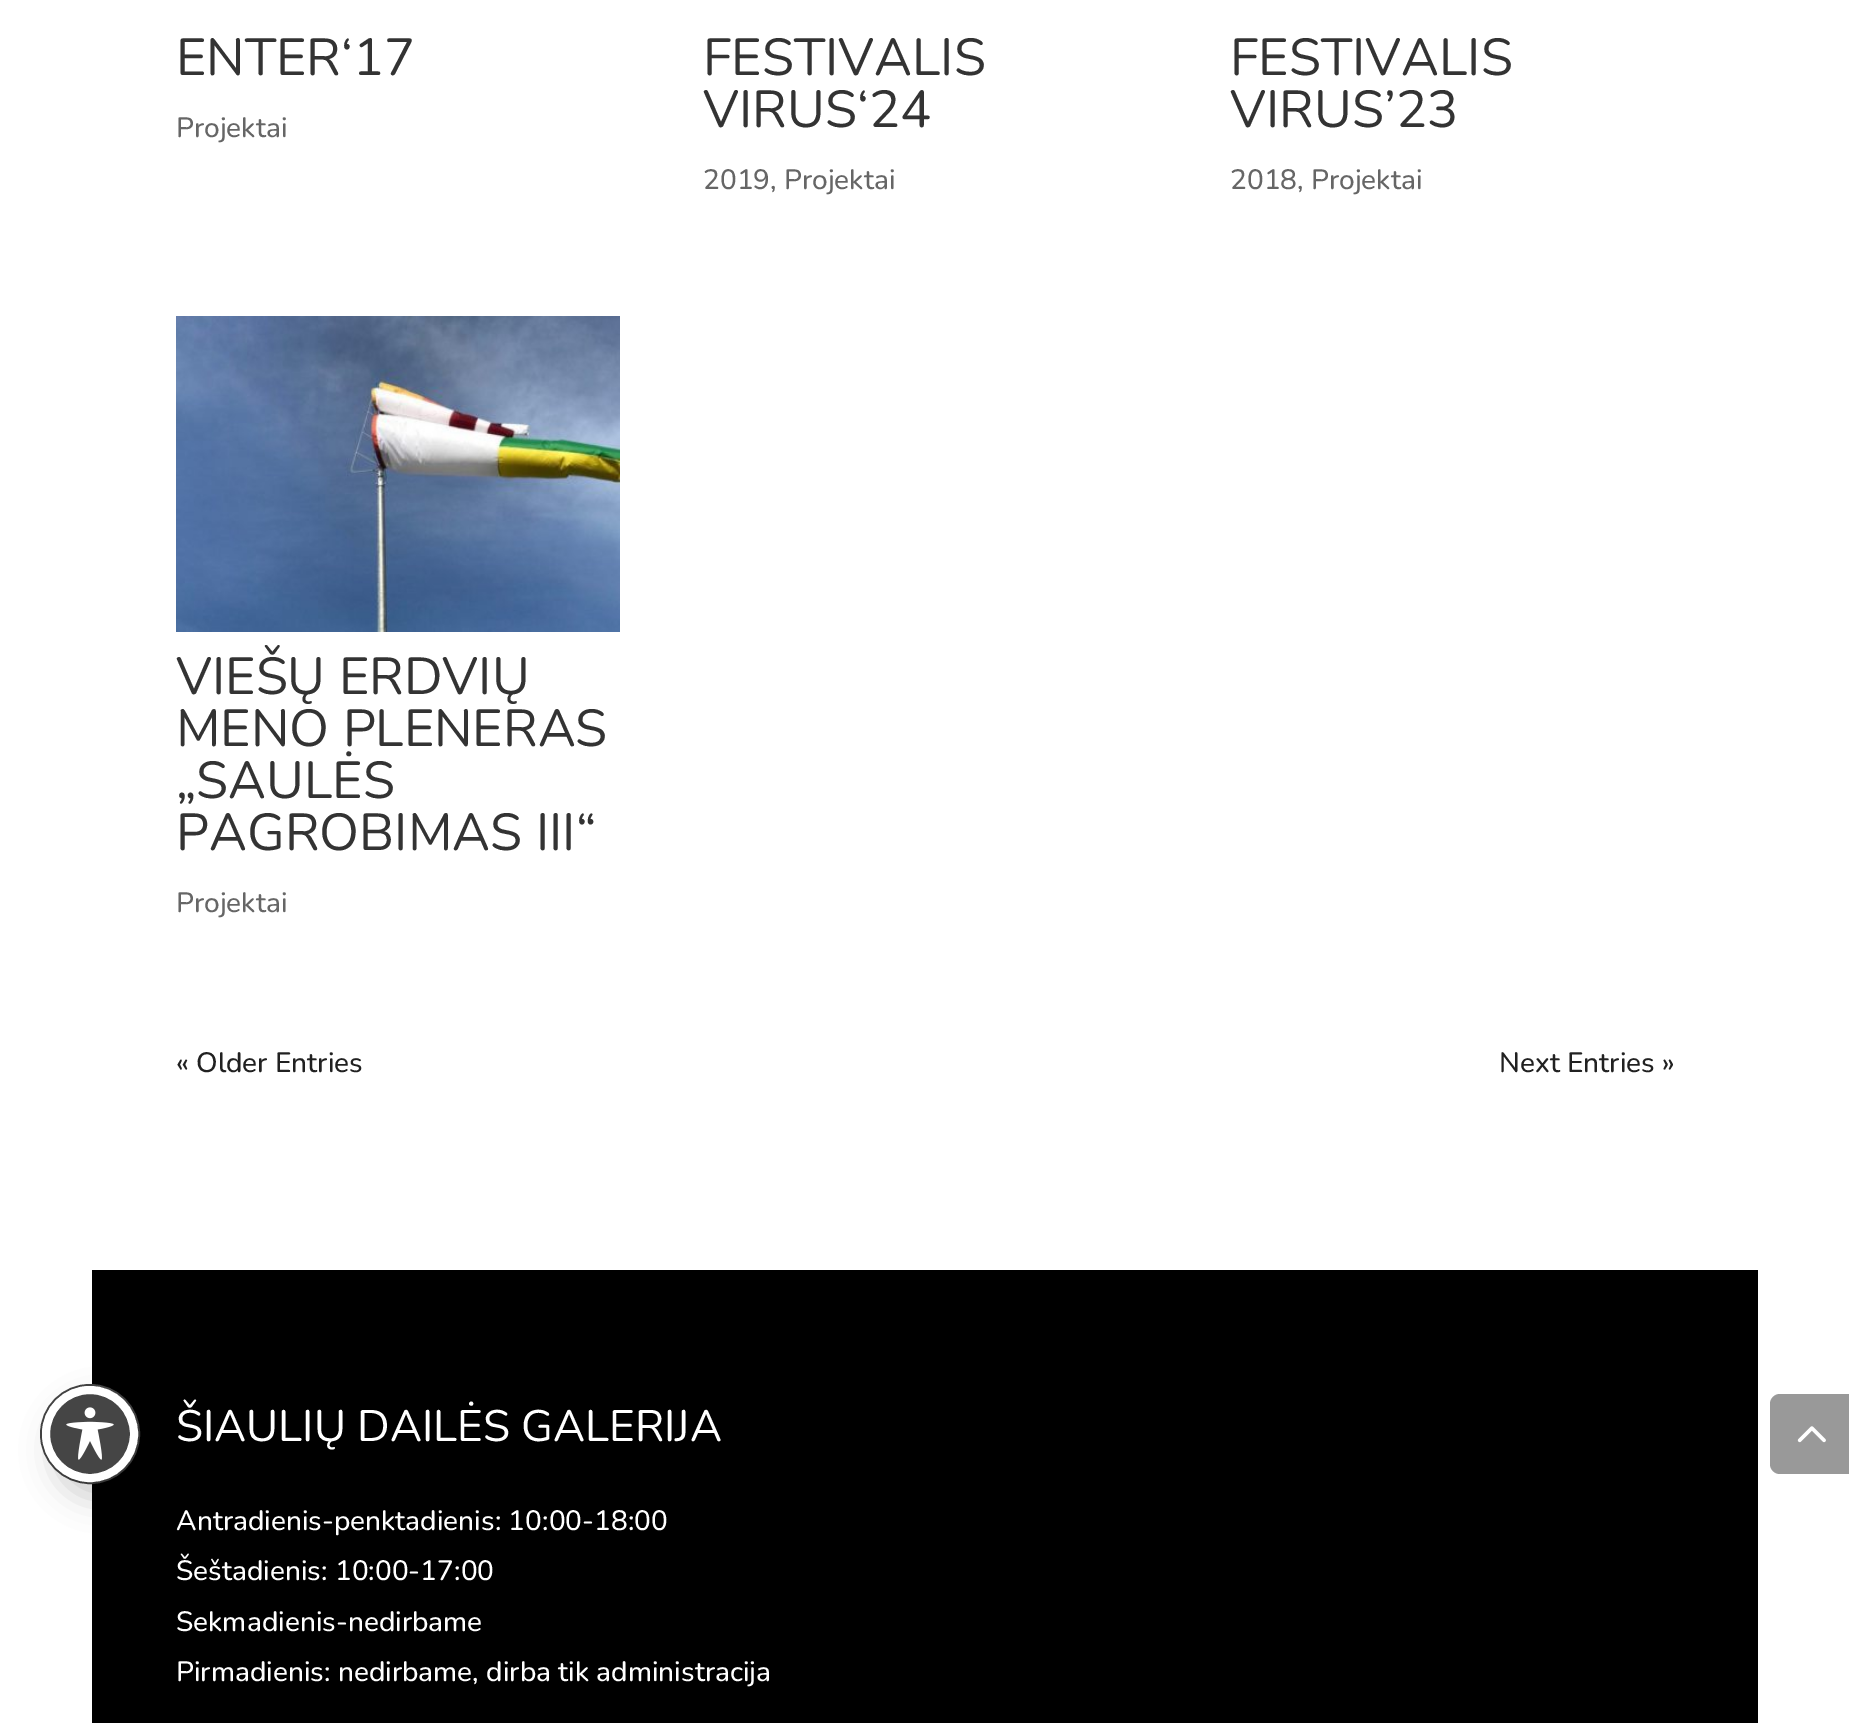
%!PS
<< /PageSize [1849 1723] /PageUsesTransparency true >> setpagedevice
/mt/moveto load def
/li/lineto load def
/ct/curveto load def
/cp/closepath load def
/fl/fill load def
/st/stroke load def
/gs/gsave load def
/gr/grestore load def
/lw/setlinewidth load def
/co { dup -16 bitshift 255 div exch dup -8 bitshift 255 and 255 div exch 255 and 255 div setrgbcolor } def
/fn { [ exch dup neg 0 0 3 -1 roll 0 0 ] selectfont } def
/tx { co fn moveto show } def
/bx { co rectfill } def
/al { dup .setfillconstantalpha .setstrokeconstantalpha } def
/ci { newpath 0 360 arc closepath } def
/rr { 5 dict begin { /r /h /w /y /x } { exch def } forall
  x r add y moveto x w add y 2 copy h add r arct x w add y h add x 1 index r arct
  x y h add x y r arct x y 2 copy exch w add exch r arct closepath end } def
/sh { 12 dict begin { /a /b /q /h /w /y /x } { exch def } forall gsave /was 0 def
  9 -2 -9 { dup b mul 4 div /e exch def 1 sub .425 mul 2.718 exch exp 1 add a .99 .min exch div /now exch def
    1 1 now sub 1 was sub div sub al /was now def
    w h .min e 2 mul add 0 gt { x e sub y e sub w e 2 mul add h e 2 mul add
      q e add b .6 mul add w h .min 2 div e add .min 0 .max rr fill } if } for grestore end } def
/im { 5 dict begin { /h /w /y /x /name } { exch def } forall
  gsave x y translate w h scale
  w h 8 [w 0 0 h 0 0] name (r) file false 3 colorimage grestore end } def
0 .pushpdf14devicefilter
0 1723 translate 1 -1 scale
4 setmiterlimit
0 0 1849 1723 16#FFFFFF bx
92 1270 1666 453 16#000000 bx
16#454545 co
2 lw
90 1434 49 ci st
16#000000 co
54 1402 96 96 48 16 .2 sh
16#454545 co
90 1434 44 ci gs fl gr
16#FFFFFF co
8 lw
st
(media/1.raw) 66 1407 48 53 im
(media/2.raw) 176 316 444 316 im
16#999999 co
1780 1394 mt 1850 1394 li 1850 1474 li 1780 1474 li 1774.5 1474 1770 1469.5 1770 1464 ct 1770 1404 li 1770 1398.5 1774.5 1394 1780 1394 ct cp fl
(media/3.raw) 1797 1426 29 17 im
(ENTER‘17) 176 75 /Nunito-Regular 52 16#333333 tx
(Projektai) 176 137 /Nunito-Medium 28 16#666666 tx
(FESTIVALIS) 703 75 /Nunito-Regular 52 16#333333 tx
(VIRUS‘24) 703 127 /Nunito-Regular 52 16#333333 tx
(2019, Projektai) 703 189 /Nunito-Medium 28 16#666666 tx
(FESTIVALIS) 1230 75 /Nunito-Regular 52 16#333333 tx
(VIRUS’23) 1230 127 /Nunito-Regular 52 16#333333 tx
(2018, Projektai) 1230 189 /Nunito-Medium 28 16#666666 tx
(VIEŠŲ ERDVIŲ) 176 694 /Nunito-Regular 52 16#333333 tx
(MENO PLENERAS) 176 746 /Nunito-Regular 52 16#333333 tx
(„SAULĖS) 176 798 /Nunito-Regular 52 16#333333 tx
(PAGROBIMAS III“) 176 850 /Nunito-Regular 52 16#333333 tx
(Projektai) 176 912 /Nunito-Medium 28 16#666666 tx
(« Older Entries) 176 1072 /Nunito-Medium 28 16#212121 tx
(Next Entries ») 1499 1072 /Nunito-Medium 28 16#212121 tx
(ŠIAULIŲ DAILĖS GALERIJA) 176 1441 /Nunito-Regular 44 16#FFFFFF tx
(Antradienis-penktadienis: 10:00-18:00) 176 1530 /Nunito-Medium 28 16#FFFFFF tx
(Šeštadienis: 10:00-17:00) 176 1580 /Nunito-Medium 28 16#FFFFFF tx
(Sekmadienis-nedirbame) 176 1631 /Nunito-Medium 28 16#FFFFFF tx
(Pirmadienis: nedirbame, dirba tik administracija) 176 1681 /Nunito-Medium 28 16#FFFFFF tx
.poppdf14devicefilter showpage
